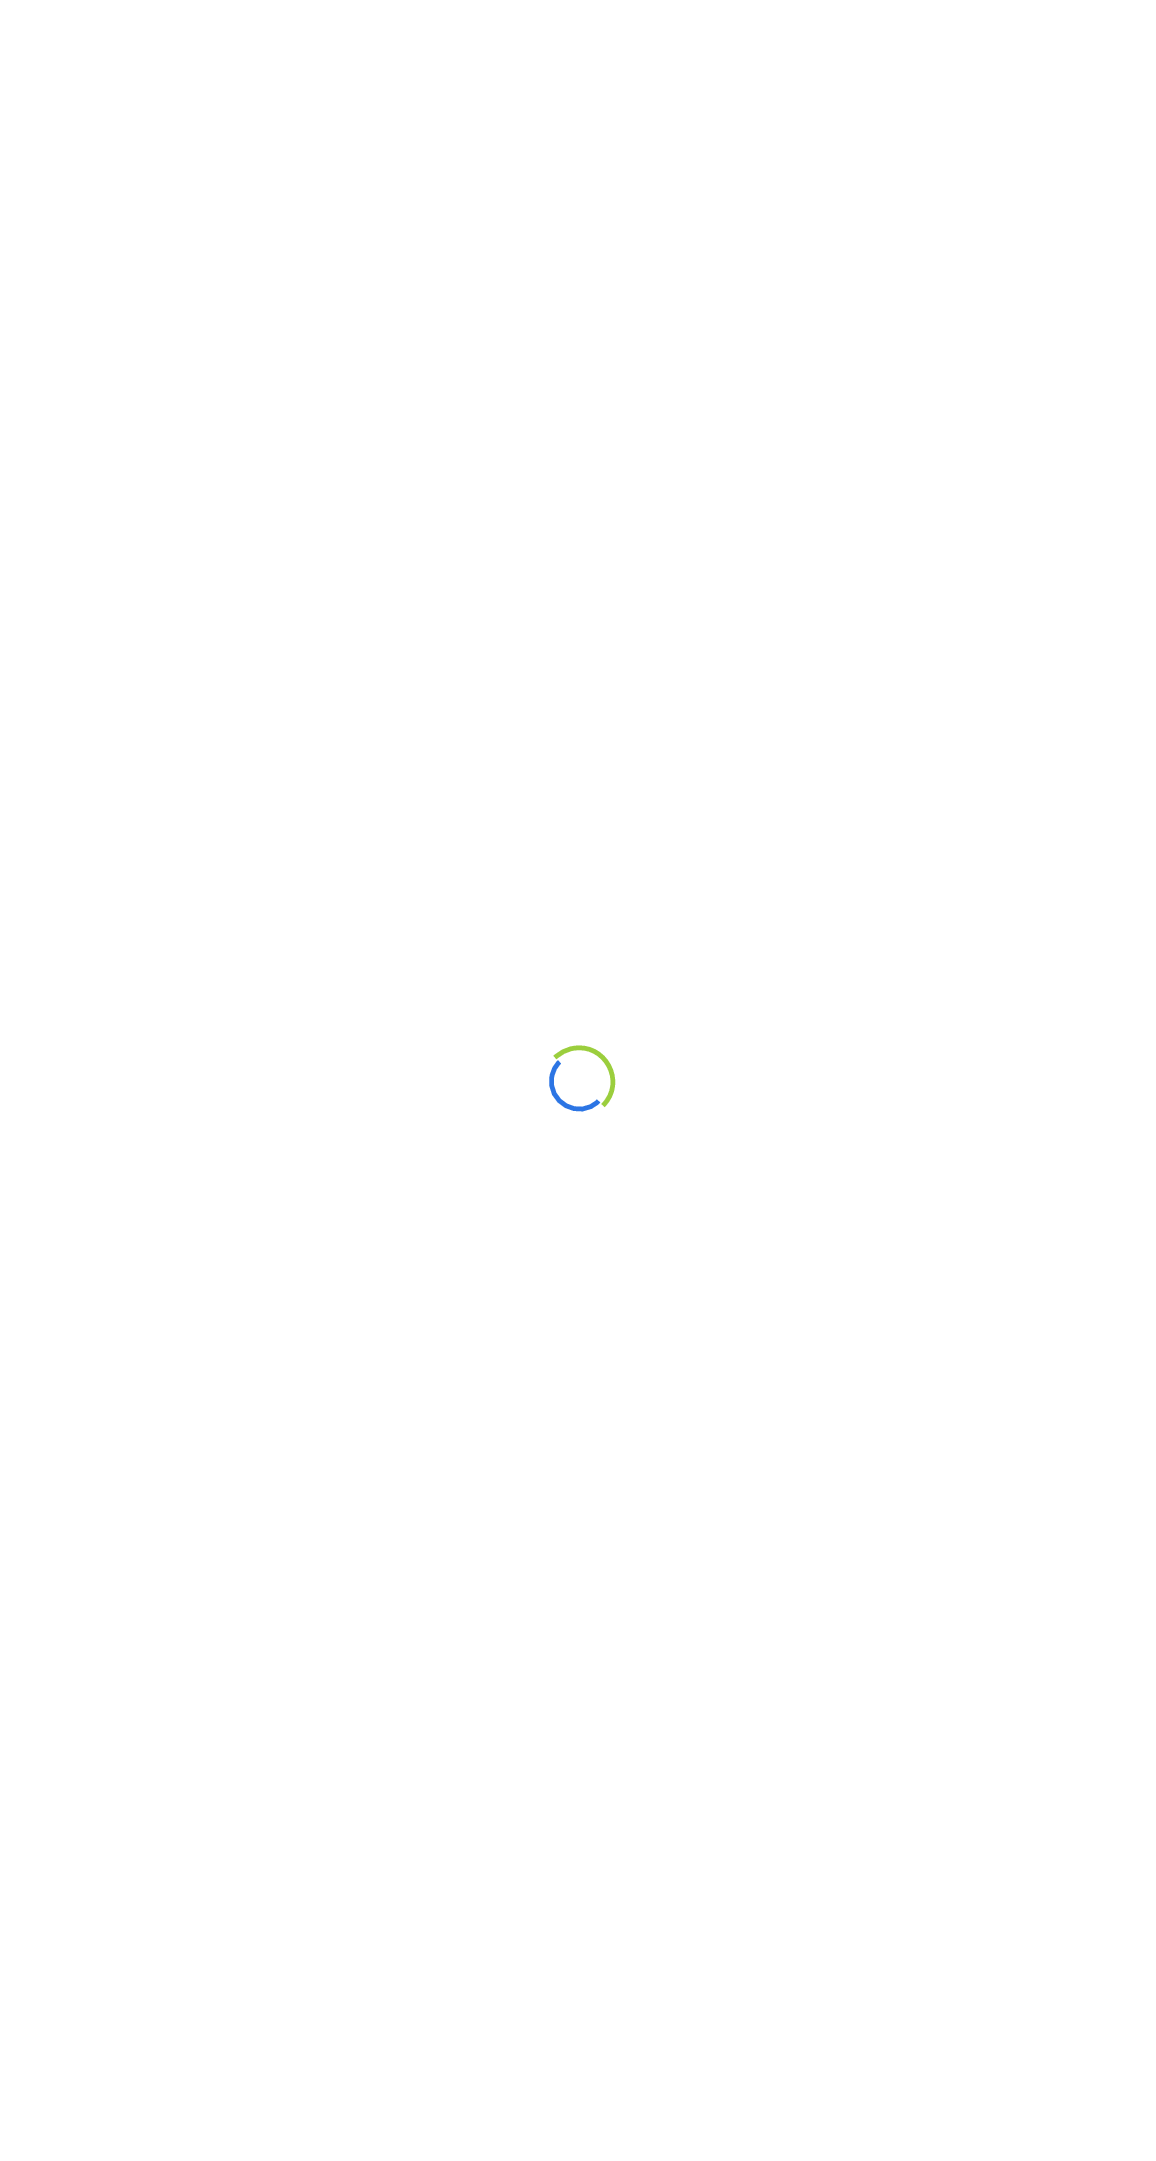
%!PS
<< /PageSize [1156 2161] >> setpagedevice
/mt/moveto load def
/ct/curveto load def
/st/stroke load def
/lw/setlinewidth load def
/co { dup -16 bitshift 255 div exch dup -8 bitshift 255 and 255 div exch 255 and 255 div setrgbcolor } def
/bx { co rectfill } def
0 2161 translate 1 -1 scale
4 setmiterlimit
0 0 1156 2161 16#FFFFFF bx
16#9BCE3D co
4.5 lw
555 1057.5 mt 560 1053 566 1049.5 572.5 1048.5 ct 605 1042 626.5 1082 603 1105.5 ct st
16#2C75E4 co
598.5 1101 mt 579.5 1120.5 546.5 1102.5 552 1076 ct 553 1070.5 555.5 1065.5 559.5 1062 ct 598.5 1101 mt 579.5 1120.5 546.5 1102.5 552 1076 ct 553 1070.5 555.5 1065.5 559.5 1062 ct st
showpage
